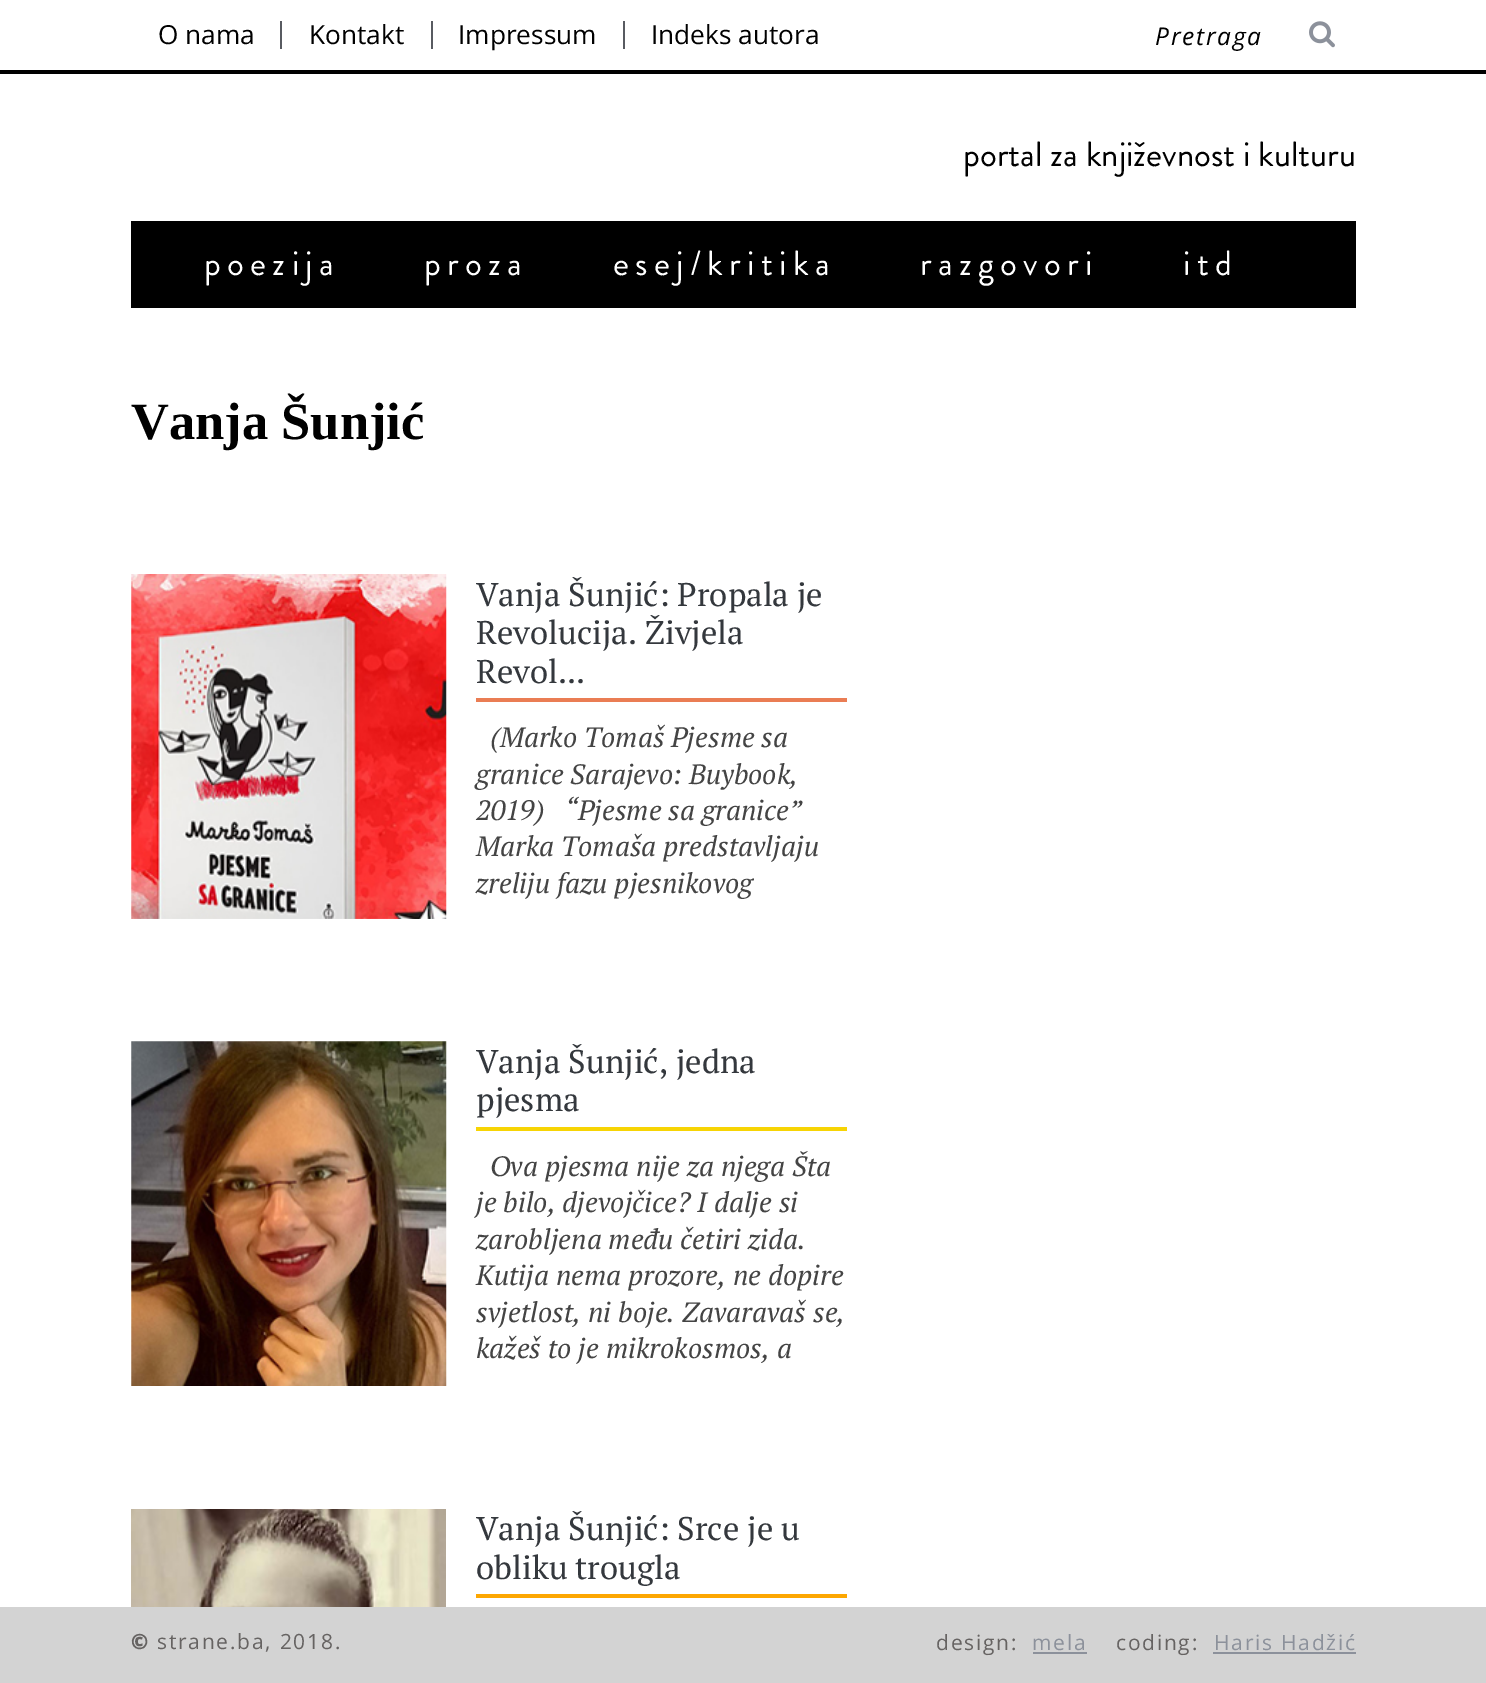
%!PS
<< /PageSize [1486 1683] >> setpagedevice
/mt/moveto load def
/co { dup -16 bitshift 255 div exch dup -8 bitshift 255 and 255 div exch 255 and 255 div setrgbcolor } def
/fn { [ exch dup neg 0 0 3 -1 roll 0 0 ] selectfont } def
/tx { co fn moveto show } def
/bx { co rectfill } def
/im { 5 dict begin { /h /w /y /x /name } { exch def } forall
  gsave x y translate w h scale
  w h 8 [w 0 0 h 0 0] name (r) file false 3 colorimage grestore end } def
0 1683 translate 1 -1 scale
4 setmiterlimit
0 0 1486 1683 16#FFFFFF bx
0 70 1486 4 16#000000 bx
280 21 2 28 16#585B61 bx
431 21 2 28 16#585B61 bx
623 21 2 28 16#585B61 bx
(media/1.raw) 1309 21 26 27 im
131 221 1225 87 16#000000 bx
(media/2.raw) 131 574 316 345 im
476 698 371 4 16#EA7D54 bx
(media/3.raw) 131 1041 316 345 im
476 1127 371 4 16#F7D404 bx
(media/4.raw) 131 1509 315 98 im
476 1594 371 4 16#FDA701 bx
0 1607 1486 76 16#D3D3D3 bx
1033 1652 54 2 16#8C919B bx
1213 1652 143 2 16#8C919B bx
(O nama) 158 44 /OpenSans-Regular 26.25 16#000000 tx
(Kontakt) 309 44 /OpenSans-Regular 26.25 16#000000 tx
(Impressum) 458 44 /OpenSans-Regular 26.25 16#000000 tx
(Indeks autora) 651 44 /OpenSans-Regular 26.25 16#000000 tx
/OpenSans-Italic 24.5 fn
1155 45 mt 1.75 0 (Pretraga) ashow
(portal za književnost i kulturu) 963 166 /BrandonGrotesque-Regular 35 16#000000 tx
16#FFFFFF co
204 275 mt 6.25 0 (poezija) ashow
424 275 mt 6.25 0 (proza) ashow
613 275 mt 6.25 0 (esej/kritika) ashow
920 275 mt 6.25 0 (razgovori) ashow
1183 275 mt 6.25 0 (itd) ashow
(Vanja Šunjić) 131 439 /LiberationSerif-Bold 52.5 16#000000 tx
(Vanja Šunjić: Propala je) 476 606 /PTSerif-Regular 32.75 16#34383D tx
(Revolucija. Živjela) 476 644 /PTSerif-Regular 32.75 16#34383D tx
(Revol...) 476 683 /PTSerif-Regular 32.75 16#34383D tx
(\(Marko Tomaš Pjesme sa) 490 747 /PTSerif-Italic 28 16#444444 tx
(granice Sarajevo: Buybook,) 476 784 /PTSerif-Italic 28 16#444444 tx
(2019\)   “Pjesme sa granice”) 476 820 /PTSerif-Italic 28 16#444444 tx
(Marka Tomaša predstavljaju) 476 856 /PTSerif-Italic 28 16#444444 tx
(zreliju fazu pjesnikovog) 476 893 /PTSerif-Italic 28 16#444444 tx
(Vanja Šunjić, jedna) 476 1073 /PTSerif-Regular 32.75 16#34383D tx
(pjesma) 476 1111 /PTSerif-Regular 32.75 16#34383D tx
(Ova pjesma nije za njega Šta) 490 1176 /PTSerif-Italic 28 16#444444 tx
(je bilo, djevojčice? I dalje si) 476 1212 /PTSerif-Italic 28 16#444444 tx
(zarobljena među četiri zida.) 476 1249 /PTSerif-Italic 28 16#444444 tx
(Kutija nema prozore, ne dopire) 476 1285 /PTSerif-Italic 28 16#444444 tx
(svjetlost, ni boje. Zavaravaš se,) 476 1322 /PTSerif-Italic 28 16#444444 tx
(kažeš to je mikrokosmos, a) 476 1358 /PTSerif-Italic 28 16#444444 tx
(Vanja Šunjić: Srce je u) 476 1540 /PTSerif-Regular 32.75 16#34383D tx
(obliku trougla) 476 1579 /PTSerif-Regular 32.75 16#34383D tx
/NotoSans-Black 21 fn
16#666362 co
131 1649 mt 1.75 0 (©) ashow
/OpenSans-Regular 21 fn
157 1649 mt 1.75 0 (strane.ba, 2018.) ashow
936 1650 mt 1.75 0 (design:) ashow
16#8C919B co
1032 1650 mt 1.75 0 (mela) ashow
16#666362 co
1116 1650 mt 1.75 0 (coding:) ashow
16#8C919B co
1214 1650 mt 1.75 0 (Haris Hadžić) ashow
showpage
